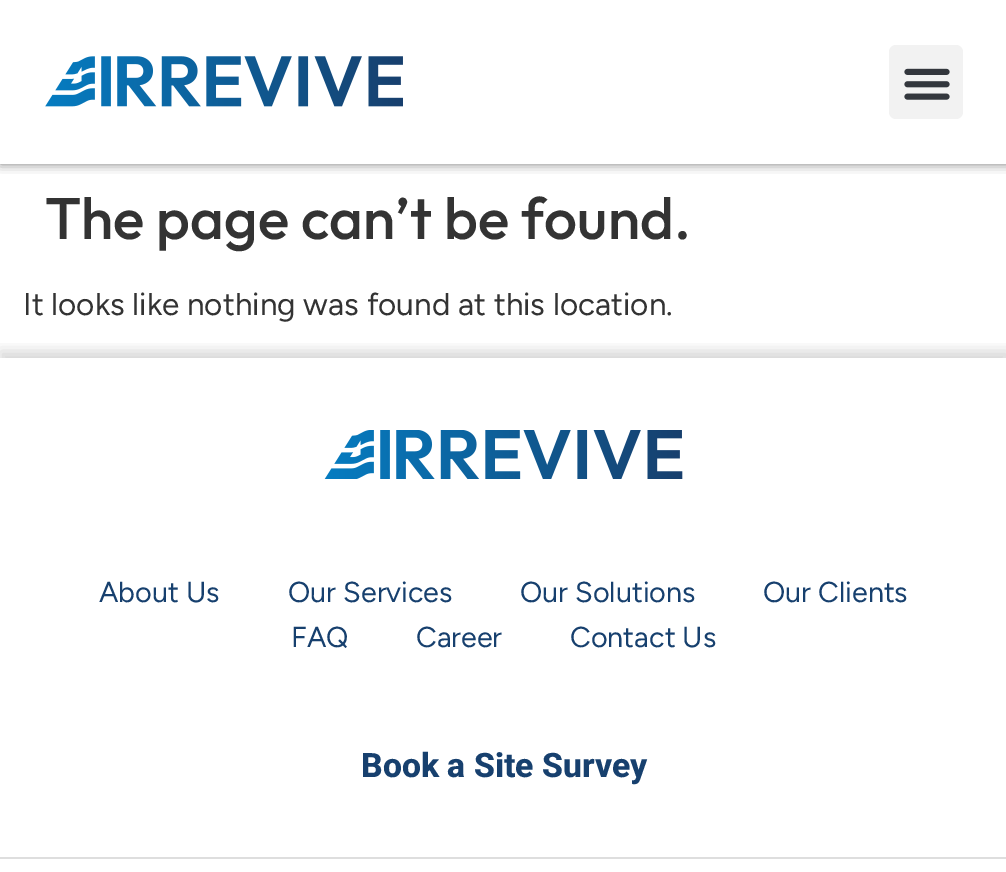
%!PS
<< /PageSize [1006 872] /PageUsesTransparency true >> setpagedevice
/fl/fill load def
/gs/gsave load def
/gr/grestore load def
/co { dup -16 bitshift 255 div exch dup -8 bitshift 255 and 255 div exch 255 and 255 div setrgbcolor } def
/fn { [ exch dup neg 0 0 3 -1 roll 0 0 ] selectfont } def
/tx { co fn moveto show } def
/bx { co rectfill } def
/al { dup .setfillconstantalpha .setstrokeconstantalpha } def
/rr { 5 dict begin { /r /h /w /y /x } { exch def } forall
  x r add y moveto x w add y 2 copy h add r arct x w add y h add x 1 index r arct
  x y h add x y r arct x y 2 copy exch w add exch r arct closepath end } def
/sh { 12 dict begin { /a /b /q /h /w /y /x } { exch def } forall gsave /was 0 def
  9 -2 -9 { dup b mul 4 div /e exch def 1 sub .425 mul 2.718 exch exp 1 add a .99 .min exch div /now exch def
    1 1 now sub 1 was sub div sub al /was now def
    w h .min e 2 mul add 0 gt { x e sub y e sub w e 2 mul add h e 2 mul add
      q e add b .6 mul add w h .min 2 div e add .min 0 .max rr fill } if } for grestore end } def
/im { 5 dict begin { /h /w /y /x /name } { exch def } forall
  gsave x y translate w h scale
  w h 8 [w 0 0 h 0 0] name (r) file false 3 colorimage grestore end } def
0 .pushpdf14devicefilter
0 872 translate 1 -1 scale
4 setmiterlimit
0 0 1006 872 16#FFFFFF bx
gs
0 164 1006 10 rectclip
16#000000 co
0 0 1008 164 0 5.5 .5 sh
gr
(media/1.raw) 45 56 358 51 im
16#F2F2F2 co
889 45 74 74 7 rr fl
(media/2.raw) 904 68 46 32 im
gs
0 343 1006 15 rectclip
16#000000 co
0 351 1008 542 0 7 .16 sh
gr
0 857 1006 2 16#DEDEDE bx
(media/3.raw) 324 430 359 49 im
(The page can’t be found.) 45 239 /Outfit-Medium 58.5 16#333333 tx
(It looks like nothing was found at this location.) 23 315 /Figtree-Regular 31.5 16#333333 tx
(About Us) 99 602 /Figtree-Regular 28.75 16#17406E tx
(Our Services) 288 602 /Figtree-Regular 28.75 16#17406E tx
(Our Solutions) 520 602 /Figtree-Regular 28.75 16#17406E tx
(Our Clients) 763 602 /Figtree-Regular 28.75 16#17406E tx
(FAQ) 291 647 /Figtree-Regular 28.75 16#17406E tx
(Career) 416 647 /Figtree-Regular 28.75 16#17406E tx
(Contact Us) 570 647 /Figtree-Regular 28.75 16#17406E tx
(Book a Site Survey) 361 777 /Roboto-ExtraBold 33.75 16#17406E tx
.poppdf14devicefilter showpage
